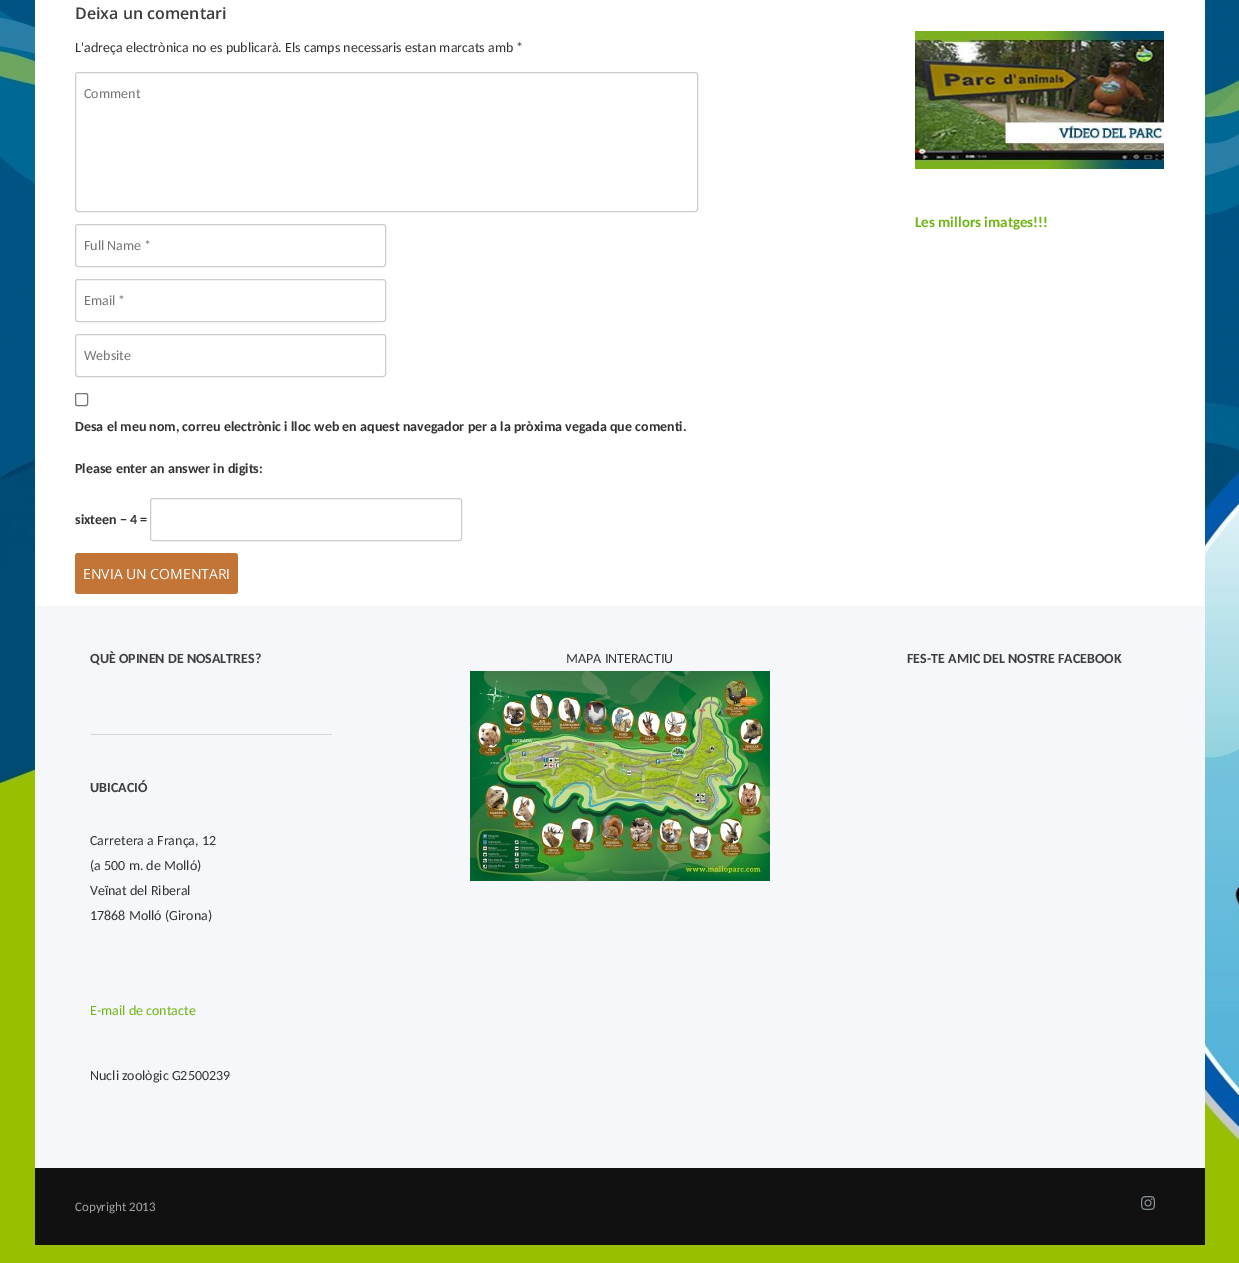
%!PS
<< /PageSize [1239 1263] >> setpagedevice
/fl/fill load def
/st/stroke load def
/co { dup -16 bitshift 255 div exch dup -8 bitshift 255 and 255 div exch 255 and 255 div setrgbcolor } def
/fn { [ exch dup neg 0 0 3 -1 roll 0 0 ] selectfont } def
/tx { co fn moveto show } def
/bx { co rectfill } def
/rr { 5 dict begin { /r /h /w /y /x } { exch def } forall
  x r add y moveto x w add y 2 copy h add r arct x w add y h add x 1 index r arct
  x y h add x y r arct x y 2 copy exch w add exch r arct closepath end } def
/im { 5 dict begin { /h /w /y /x /name } { exch def } forall
  gsave x y translate w h scale
  w h 8 [w 0 0 h 0 0] name (r) file false 3 colorimage grestore end } def
0 1263 translate 1 -1 scale
4 setmiterlimit
0 0 1239 1263 16#FFFFFF bx
(media/1.raw) 0 0 1239 1263 im
35 0 1170 606 16#FFFFFF bx
16#CCCCCC co
75.5 72.5 622 139 2.5 rr st
75.5 224.5 310 42 2.5 rr st
75.5 279.5 310 42 2.5 rr st
75.5 334.5 310 42 2.5 rr st
16#767676 co
75.5 393.5 12 12 1.5 rr st
16#CCCCCC co
150.5 498.5 311 42 2.5 rr st
16#C27537 co
75 553 163 41 3 rr fl
(media/2.raw) 915 31 249 138 im
35 606 1170 562 16#F5F7FA bx
90 734 242 1 16#D6D6D6 bx
(media/3.raw) 470 671 300 210 im
35 1168 1170 77 16#111111 bx
(media/4.raw) 1141 1196 14 14 im
(Deixa un comentari) 75 19 /OpenSans-SemiBold 16 16#3D3D3D tx
(L'adreça electrònica no es publicarà. Els camps necessaris estan marcats amb *) 75 52 /Carlito-Regular 14 16#333333 tx
(Comment) 84 98 /Carlito-Regular 14 16#757575 tx
(Full Name *) 84 250 /Carlito-Regular 14 16#757575 tx
(Email *) 84 305 /Carlito-Regular 14 16#757575 tx
(Website) 84 360 /Carlito-Regular 14 16#757575 tx
(Desa el meu nom, correu electrònic i lloc web en aquest navegador per a la pròxima vegada que comenti.) 75 431 /Carlito-Bold 14 16#333333 tx
(Please enter an answer in digits:) 75 473 /Carlito-Bold 14 16#333333 tx
(sixteen − 4 =) 75 524 /Carlito-Bold 14 16#333333 tx
(ENVIA UN COMENTARI) 83 579 /OpenSans-Regular 14 16#FFFFFF tx
(Les millors imatges!!!) 915 227 /Carlito-Bold 15 16#6FB616 tx
(QUÈ OPINEN DE NOSALTRES?) 90 663 /Carlito-Bold 14 16#3D3D3D tx
(UBICACIÓ) 90 792 /Carlito-Bold 14 16#3D3D3D tx
(Carretera a França, 12) 90 845 /Carlito-Regular 14 16#333333 tx
(\(a 500 m. de Molló\)) 90 870 /Carlito-Regular 14 16#333333 tx
(Veïnat del Riberal) 90 895 /Carlito-Regular 14 16#333333 tx
(17868 Molló \(Girona\)) 90 920 /Carlito-Regular 14 16#333333 tx
(E-mail de contacte) 90 1015 /Carlito-Regular 14 16#6FB616 tx
(Nucli zoològic G2500239) 90 1080 /Carlito-Regular 14 16#333333 tx
(MAPA INTERACTIU) 566 663 /Carlito-Regular 14 16#333333 tx
(FES-TE AMIC DEL NOSTRE FACEBOOK) 907 663 /Carlito-Bold 14 16#3D3D3D tx
(Copyright 2013) 75 1211 /Carlito-Regular 13 16#A5A5A5 tx
showpage
